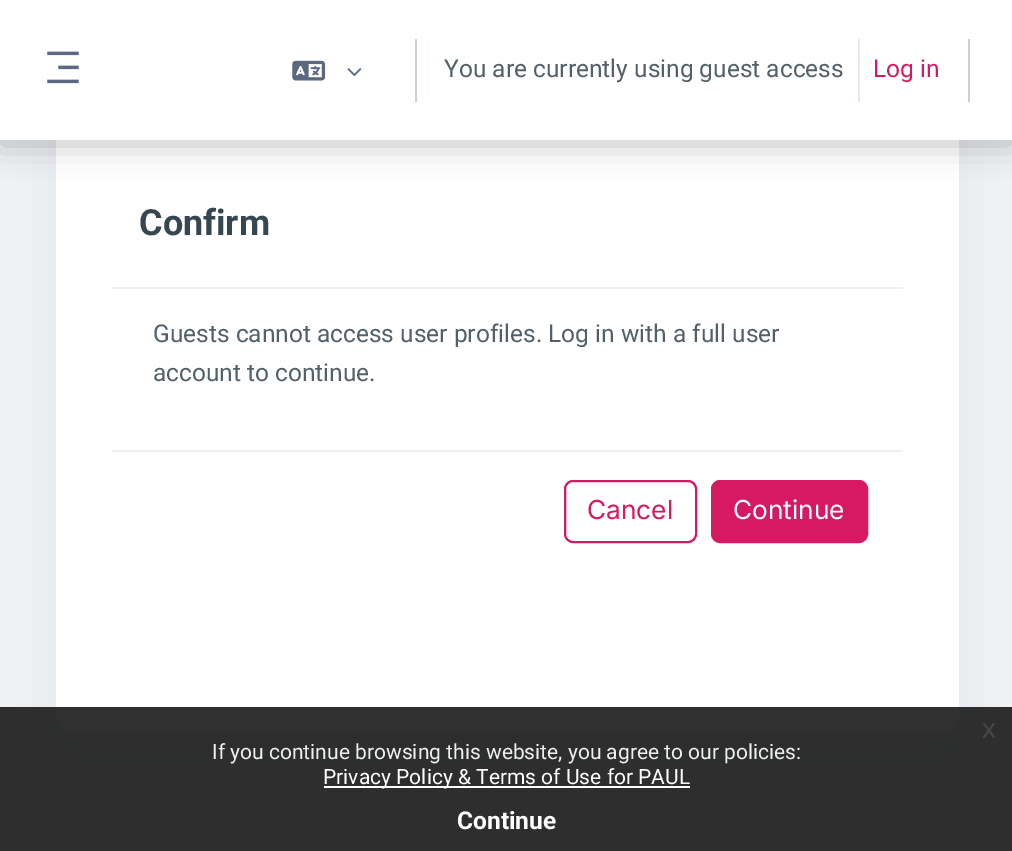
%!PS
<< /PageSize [1012 851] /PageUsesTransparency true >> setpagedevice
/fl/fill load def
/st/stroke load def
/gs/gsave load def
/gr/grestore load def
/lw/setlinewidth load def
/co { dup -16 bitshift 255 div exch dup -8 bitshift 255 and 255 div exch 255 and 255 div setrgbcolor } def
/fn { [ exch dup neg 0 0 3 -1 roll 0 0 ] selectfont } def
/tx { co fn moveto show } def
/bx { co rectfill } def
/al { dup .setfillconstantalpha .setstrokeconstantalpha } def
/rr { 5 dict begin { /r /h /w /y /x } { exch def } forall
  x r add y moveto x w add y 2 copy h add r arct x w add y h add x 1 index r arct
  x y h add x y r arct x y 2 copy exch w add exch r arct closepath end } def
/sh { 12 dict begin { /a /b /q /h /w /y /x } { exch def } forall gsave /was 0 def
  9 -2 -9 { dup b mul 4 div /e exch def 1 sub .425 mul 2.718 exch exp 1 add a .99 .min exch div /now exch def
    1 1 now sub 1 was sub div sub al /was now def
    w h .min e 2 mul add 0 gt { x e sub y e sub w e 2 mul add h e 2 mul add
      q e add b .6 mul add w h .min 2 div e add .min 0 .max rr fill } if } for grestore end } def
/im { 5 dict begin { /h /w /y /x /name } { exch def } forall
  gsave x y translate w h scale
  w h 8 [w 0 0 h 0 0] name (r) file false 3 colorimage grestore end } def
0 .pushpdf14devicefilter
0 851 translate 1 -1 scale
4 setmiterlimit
0 0 1012 851 16#F1F4F5 bx
16#5C6B79 co
56 33 903 721 14 32.5 .1 sh
16#FFFFFF co
56 11 903 721 14 rr fl
16#000000 co
0 4 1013 140 0 16 .25 sh
0 0 1012 140 16#FFFFFF bx
(media/1.raw) 47 51 32 33 im
(media/2.raw) 292 60 34 21 im
(media/3.raw) 347 68 15 8 im
415 39 2 63 16#CBD0D8 bx
858 39 2 63 16#E2E7F0 bx
968 39 2 63 16#CBD0D8 bx
112 287 791 2 16#EDF1F6 bx
112 450 791 2 16#EDF1F6 bx
16#D71964 co
2 lw
565 481 131 61 8 rr st
712 481 155 61 8 rr gs fl gr
st
0.9 al
0 707 1012 144 16#191919 bx
1 al
324 786 366 2 16#FFFFFF bx
(You are currently using guest access) 444 77 /Roboto-Regular 24.5 16#526069 tx
(Log in) 873 77 /Roboto-Regular 24.5 16#D71964 tx
(Confirm) 139 235 /Roboto-Bold 36 16#37474F tx
(Guests cannot access user profiles. Log in with a full user) 153 342 /Roboto-Regular 24.5 16#526069 tx
(account to continue.) 153 381 /Roboto-Regular 24.5 16#526069 tx
(Cancel) 587 519 /Inter-Regular 26.25 16#D71964 tx
(Continue) 733 519 /Inter-Regular 26.25 16#FFFFFF tx
(x) 982 738 /LiberationSans-Regular 28 16#464646 tx
(If you continue browsing this website, you agree to our policies:) 212 759 /Roboto-Regular 21 16#EFEFEF tx
(Privacy Policy & Terms of Use for PAUL) 323 784 /Roboto-Regular 21 16#FFFFFF tx
(Continue) 457 829 /Roboto-Bold 24.5 16#FFFFFF tx
.poppdf14devicefilter showpage
